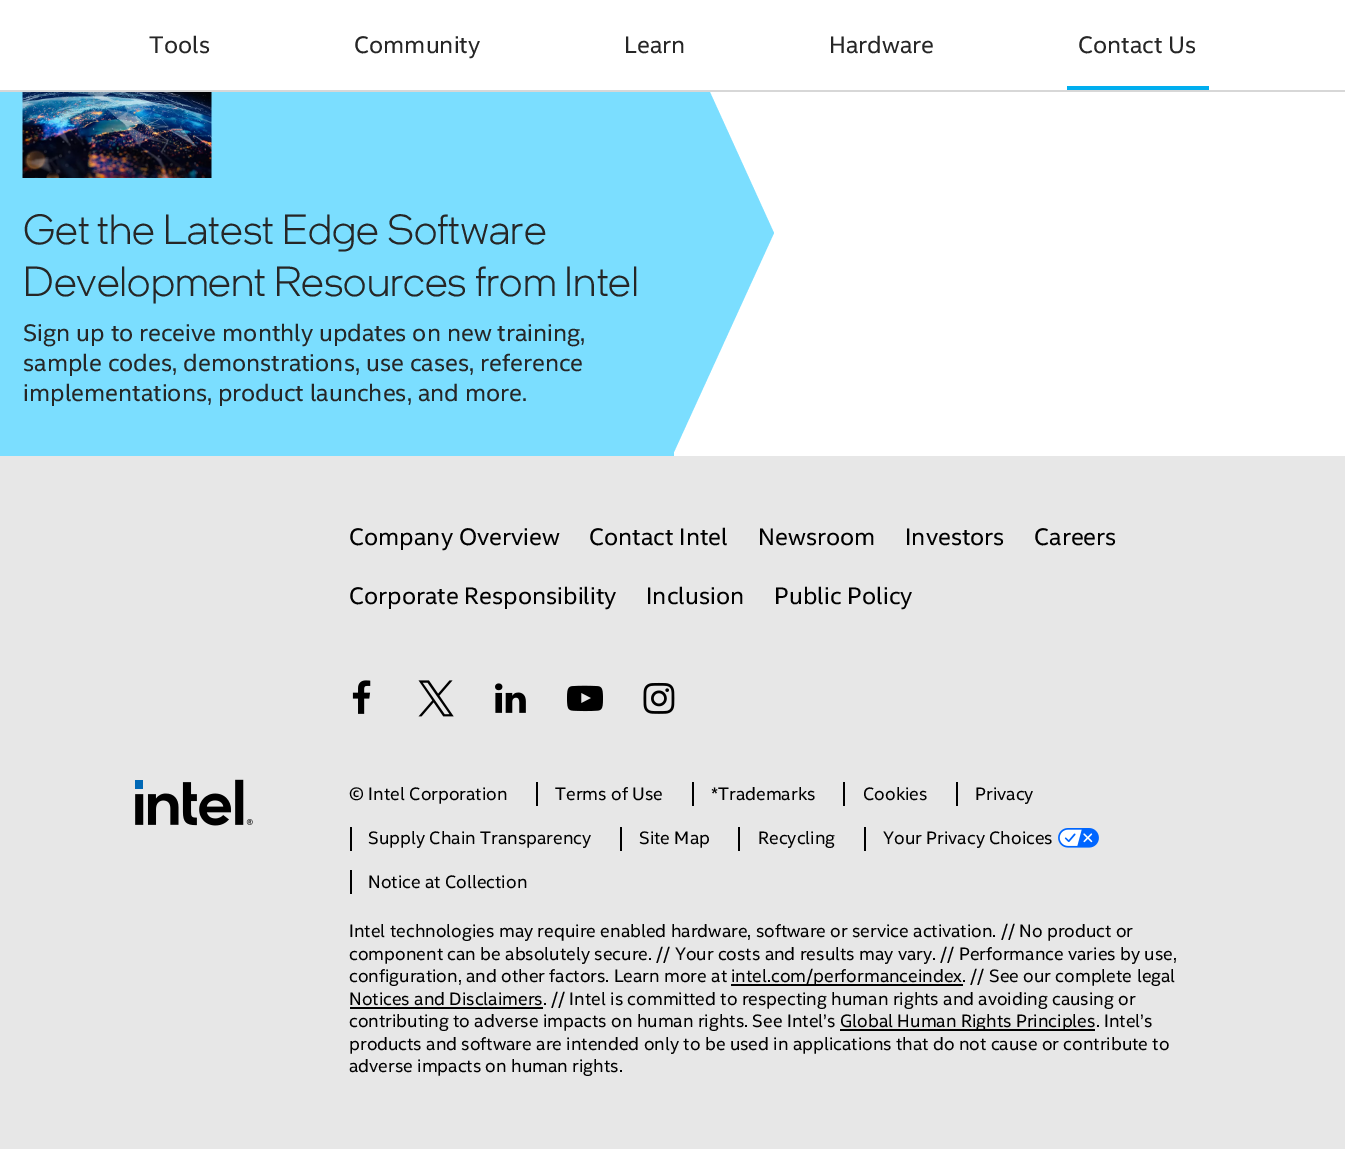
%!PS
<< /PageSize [1345 1149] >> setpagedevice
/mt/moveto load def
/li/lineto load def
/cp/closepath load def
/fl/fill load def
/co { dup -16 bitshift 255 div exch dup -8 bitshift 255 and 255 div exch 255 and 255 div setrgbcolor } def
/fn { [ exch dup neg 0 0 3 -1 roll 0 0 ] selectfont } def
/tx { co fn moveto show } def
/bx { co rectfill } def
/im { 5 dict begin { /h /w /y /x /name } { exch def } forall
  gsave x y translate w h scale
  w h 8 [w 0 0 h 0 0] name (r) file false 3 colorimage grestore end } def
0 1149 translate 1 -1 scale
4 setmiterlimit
0 0 1345 1149 16#FFFFFF bx
16#7BDEFF co
674 13 mt 674 452 li 774 233 li cp fl
674 13 35 77 16#FFFFFF bx
0 90 1345 2 16#D7D7D7 bx
1067 86 142 4 16#00AEEF bx
0 92 674 364 16#7BDEFF bx
(media/1.raw) 22 92 190 86 im
0 456 1345 693 16#E7E7E7 bx
(media/2.raw) 135 779 118 47 im
(media/3.raw) 352 680 19 34 im
(media/4.raw) 418 680 36 37 im
(media/5.raw) 495 683 31 30 im
(media/6.raw) 567 685 36 27 im
(media/7.raw) 643 682 32 32 im
536 782 2 24 16#000000 bx
692 782 2 24 16#000000 bx
843 782 2 24 16#000000 bx
956 782 2 24 16#000000 bx
350 827 2 24 16#000000 bx
620 827 2 24 16#000000 bx
738 827 2 24 16#000000 bx
864 827 2 24 16#000000 bx
(media/8.raw) 1058 828 41 20 im
350 870 2 24 16#000000 bx
731 984 232 2 16#000000 bx
350 1007 193 2 16#000000 bx
840 1029 255 2 16#000000 bx
(Tools) 149 53 /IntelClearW-Regular 24 16#262626 tx
(Community) 354 53 /IntelClearW-Regular 24 16#262626 tx
(Learn) 624 53 /IntelClearW-Regular 24 16#262626 tx
(Hardware) 829 53 /IntelClearW-Regular 24 16#262626 tx
(Contact Us) 1078 53 /IntelClearW-Regular 24 16#262626 tx
(Get the Latest Edge Software) 23 244 /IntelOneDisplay-Light 42 16#262626 tx
(Development Resources from Intel) 23 296 /IntelOneDisplay-Light 42 16#262626 tx
(Sign up to receive monthly updates on new training,) 23 341 /IntelClearW-Regular 24 16#262626 tx
(sample codes, demonstrations, use cases, reference) 23 371 /IntelClearW-Regular 24 16#262626 tx
(implementations, product launches, and more.) 23 401 /IntelClearW-Regular 24 16#262626 tx
(Company Overview) 349 545 /IntelClearW-Regular 24 16#000000 tx
(Contact Intel) 589 545 /IntelClearW-Regular 24 16#000000 tx
(Newsroom) 758 545 /IntelClearW-Regular 24 16#000000 tx
(Investors) 905 545 /IntelClearW-Regular 24 16#000000 tx
(Careers) 1034 545 /IntelClearW-Regular 24 16#000000 tx
(Corporate Responsibility) 349 604 /IntelClearW-Regular 24 16#000000 tx
(Inclusion) 646 604 /IntelClearW-Regular 24 16#000000 tx
(Public Policy) 774 604 /IntelClearW-Regular 24 16#000000 tx
(© Intel Corporation) 349 800 /IntelClearW-Regular 18 16#000000 tx
(Terms of Use) 555 800 /IntelClearW-Regular 18 16#000000 tx
(*Trademarks) 711 800 /IntelClearW-Regular 18 16#000000 tx
(Cookies) 863 800 /IntelClearW-Regular 18 16#000000 tx
(Privacy) 975 800 /IntelClearW-Regular 18 16#000000 tx
(Supply Chain Transparency) 368 844 /IntelClearW-Regular 18 16#000000 tx
(Site Map) 639 844 /IntelClearW-Regular 18 16#000000 tx
(Recycling) 758 844 /IntelClearW-Regular 18 16#000000 tx
(Your Privacy Choices) 883 844 /IntelClearW-Regular 18 16#000000 tx
(Notice at Collection) 368 888 /IntelClearW-Regular 18 16#000000 tx
(Intel technologies may require enabled hardware, software or service activation. // No product or) 349 937 /IntelClearW-Regular 18 16#000000 tx
(component can be absolutely secure. // Your costs and results may vary. // Performance varies by use,) 349 960 /IntelClearW-Regular 18 16#000000 tx
(configuration, and other factors. Learn more at) 349 982 /IntelClearW-Regular 18 16#000000 tx
(intel.com/performanceindex. // See our complete legal) 731 982 /IntelClearW-Regular 18 16#000000 tx
(Notices and Disclaimers. // Intel is committed to respecting human rights and avoiding causing or) 349 1005 /IntelClearW-Regular 18 16#000000 tx
(contributing to adverse impacts on human rights. See Intel’s) 349 1027 /IntelClearW-Regular 18 16#000000 tx
(Global Human Rights Principles. Intel’s) 840 1027 /IntelClearW-Regular 18 16#000000 tx
(products and software are intended only to be used in applications that do not cause or contribute to) 349 1050 /IntelClearW-Regular 18 16#000000 tx
(adverse impacts on human rights.) 349 1072 /IntelClearW-Regular 18 16#000000 tx
showpage
